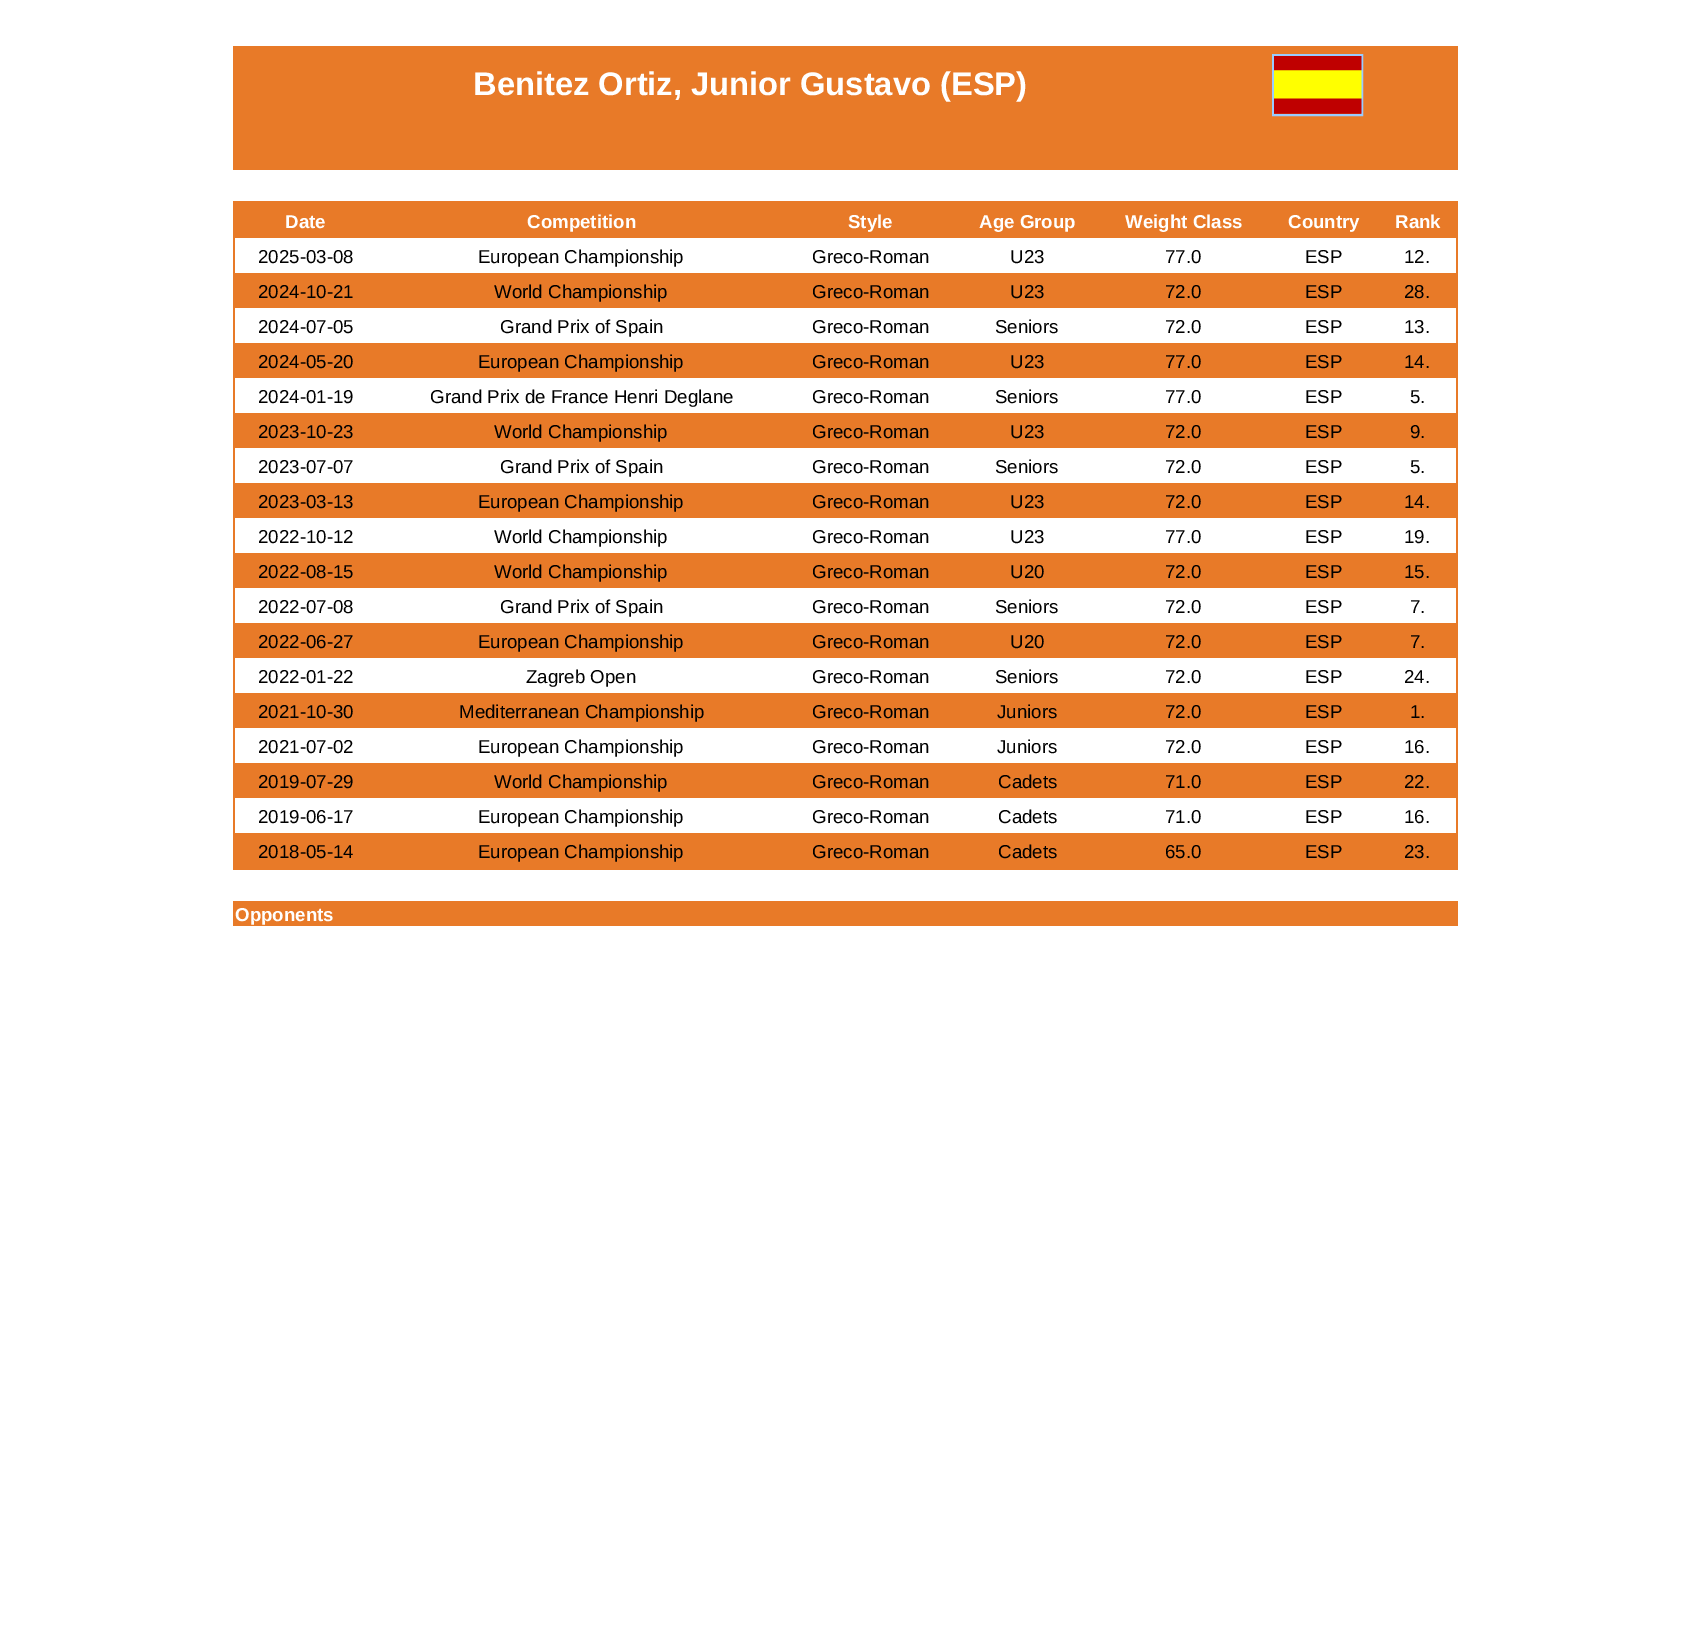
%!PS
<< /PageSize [1689 1626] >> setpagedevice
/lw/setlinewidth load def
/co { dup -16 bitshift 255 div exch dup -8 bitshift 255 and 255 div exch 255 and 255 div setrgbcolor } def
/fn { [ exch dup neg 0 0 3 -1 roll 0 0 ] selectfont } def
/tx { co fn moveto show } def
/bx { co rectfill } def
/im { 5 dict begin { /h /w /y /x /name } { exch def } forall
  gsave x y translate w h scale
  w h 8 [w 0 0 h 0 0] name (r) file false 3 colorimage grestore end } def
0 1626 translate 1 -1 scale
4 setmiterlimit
0 0 1689 1626 16#FFFFFF bx
233 46 1225 124 16#E87A28 bx
16#99CCFF co
2 lw
1273 55 89 60 rectstroke
(media/1.raw) 1274 56 88 58 im
233 201 1225 669 16#E87A28 bx
235 238 1221 35 16#FFFFFF bx
235 308 1221 35 16#FFFFFF bx
235 378 1221 35 16#FFFFFF bx
235 448 1221 35 16#FFFFFF bx
235 518 1221 35 16#FFFFFF bx
235 588 1221 35 16#FFFFFF bx
235 658 1221 35 16#FFFFFF bx
235 728 1221 35 16#FFFFFF bx
235 798 1221 35 16#FFFFFF bx
233 901 1225 25 16#E87A28 bx
(Benitez Ortiz, Junior Gustavo \(ESP\)) 473 95 /LiberationSans-Bold 32.7 16#FFFFFF tx
(Date) 285 228 /LiberationSans-Bold 18.7 16#FFFFFF tx
(Competition) 527 228 /LiberationSans-Bold 18.7 16#FFFFFF tx
(Style) 848 228 /LiberationSans-Bold 18.7 16#FFFFFF tx
(Age Group) 979 228 /LiberationSans-Bold 18.7 16#FFFFFF tx
(Weight Class) 1125 228 /LiberationSans-Bold 18.7 16#FFFFFF tx
(Country) 1288 228 /LiberationSans-Bold 18.7 16#FFFFFF tx
(Rank) 1395 228 /LiberationSans-Bold 18.7 16#FFFFFF tx
(2025-03-08) 258 263 /LiberationSans-Regular 18.7 16#000000 tx
(European Championship) 478 263 /LiberationSans-Regular 18.7 16#000000 tx
(Greco-Roman) 812 263 /LiberationSans-Regular 18.7 16#000000 tx
(U23) 1010 263 /LiberationSans-Regular 18.7 16#000000 tx
(77.0) 1165 263 /LiberationSans-Regular 18.7 16#000000 tx
(ESP) 1305 263 /LiberationSans-Regular 18.7 16#000000 tx
(12.) 1404 263 /LiberationSans-Regular 18.7 16#000000 tx
(2024-10-21) 258 298 /LiberationSans-Regular 18.7 16#000000 tx
(World Championship) 494 298 /LiberationSans-Regular 18.7 16#000000 tx
(Greco-Roman) 812 298 /LiberationSans-Regular 18.7 16#000000 tx
(U23) 1010 298 /LiberationSans-Regular 18.7 16#000000 tx
(72.0) 1165 298 /LiberationSans-Regular 18.7 16#000000 tx
(ESP) 1305 298 /LiberationSans-Regular 18.7 16#000000 tx
(28.) 1404 298 /LiberationSans-Regular 18.7 16#000000 tx
(2024-07-05) 258 333 /LiberationSans-Regular 18.7 16#000000 tx
(Grand Prix of Spain) 500 333 /LiberationSans-Regular 18.7 16#000000 tx
(Greco-Roman) 812 333 /LiberationSans-Regular 18.7 16#000000 tx
(Seniors) 995 333 /LiberationSans-Regular 18.7 16#000000 tx
(72.0) 1165 333 /LiberationSans-Regular 18.7 16#000000 tx
(ESP) 1305 333 /LiberationSans-Regular 18.7 16#000000 tx
(13.) 1404 333 /LiberationSans-Regular 18.7 16#000000 tx
(2024-05-20) 258 368 /LiberationSans-Regular 18.7 16#000000 tx
(European Championship) 478 368 /LiberationSans-Regular 18.7 16#000000 tx
(Greco-Roman) 812 368 /LiberationSans-Regular 18.7 16#000000 tx
(U23) 1010 368 /LiberationSans-Regular 18.7 16#000000 tx
(77.0) 1165 368 /LiberationSans-Regular 18.7 16#000000 tx
(ESP) 1305 368 /LiberationSans-Regular 18.7 16#000000 tx
(14.) 1404 368 /LiberationSans-Regular 18.7 16#000000 tx
(2024-01-19) 258 403 /LiberationSans-Regular 18.7 16#000000 tx
(Grand Prix de France Henri Deglane) 430 403 /LiberationSans-Regular 18.7 16#000000 tx
(Greco-Roman) 812 403 /LiberationSans-Regular 18.7 16#000000 tx
(Seniors) 995 403 /LiberationSans-Regular 18.7 16#000000 tx
(77.0) 1165 403 /LiberationSans-Regular 18.7 16#000000 tx
(ESP) 1305 403 /LiberationSans-Regular 18.7 16#000000 tx
(5.) 1410 403 /LiberationSans-Regular 18.7 16#000000 tx
(2023-10-23) 258 438 /LiberationSans-Regular 18.7 16#000000 tx
(World Championship) 494 438 /LiberationSans-Regular 18.7 16#000000 tx
(Greco-Roman) 812 438 /LiberationSans-Regular 18.7 16#000000 tx
(U23) 1010 438 /LiberationSans-Regular 18.7 16#000000 tx
(72.0) 1165 438 /LiberationSans-Regular 18.7 16#000000 tx
(ESP) 1305 438 /LiberationSans-Regular 18.7 16#000000 tx
(9.) 1410 438 /LiberationSans-Regular 18.7 16#000000 tx
(2023-07-07) 258 473 /LiberationSans-Regular 18.7 16#000000 tx
(Grand Prix of Spain) 500 473 /LiberationSans-Regular 18.7 16#000000 tx
(Greco-Roman) 812 473 /LiberationSans-Regular 18.7 16#000000 tx
(Seniors) 995 473 /LiberationSans-Regular 18.7 16#000000 tx
(72.0) 1165 473 /LiberationSans-Regular 18.7 16#000000 tx
(ESP) 1305 473 /LiberationSans-Regular 18.7 16#000000 tx
(5.) 1410 473 /LiberationSans-Regular 18.7 16#000000 tx
(2023-03-13) 258 508 /LiberationSans-Regular 18.7 16#000000 tx
(European Championship) 478 508 /LiberationSans-Regular 18.7 16#000000 tx
(Greco-Roman) 812 508 /LiberationSans-Regular 18.7 16#000000 tx
(U23) 1010 508 /LiberationSans-Regular 18.7 16#000000 tx
(72.0) 1165 508 /LiberationSans-Regular 18.7 16#000000 tx
(ESP) 1305 508 /LiberationSans-Regular 18.7 16#000000 tx
(14.) 1404 508 /LiberationSans-Regular 18.7 16#000000 tx
(2022-10-12) 258 543 /LiberationSans-Regular 18.7 16#000000 tx
(World Championship) 494 543 /LiberationSans-Regular 18.7 16#000000 tx
(Greco-Roman) 812 543 /LiberationSans-Regular 18.7 16#000000 tx
(U23) 1010 543 /LiberationSans-Regular 18.7 16#000000 tx
(77.0) 1165 543 /LiberationSans-Regular 18.7 16#000000 tx
(ESP) 1305 543 /LiberationSans-Regular 18.7 16#000000 tx
(19.) 1404 543 /LiberationSans-Regular 18.7 16#000000 tx
(2022-08-15) 258 578 /LiberationSans-Regular 18.7 16#000000 tx
(World Championship) 494 578 /LiberationSans-Regular 18.7 16#000000 tx
(Greco-Roman) 812 578 /LiberationSans-Regular 18.7 16#000000 tx
(U20) 1010 578 /LiberationSans-Regular 18.7 16#000000 tx
(72.0) 1165 578 /LiberationSans-Regular 18.7 16#000000 tx
(ESP) 1305 578 /LiberationSans-Regular 18.7 16#000000 tx
(15.) 1404 578 /LiberationSans-Regular 18.7 16#000000 tx
(2022-07-08) 258 613 /LiberationSans-Regular 18.7 16#000000 tx
(Grand Prix of Spain) 500 613 /LiberationSans-Regular 18.7 16#000000 tx
(Greco-Roman) 812 613 /LiberationSans-Regular 18.7 16#000000 tx
(Seniors) 995 613 /LiberationSans-Regular 18.7 16#000000 tx
(72.0) 1165 613 /LiberationSans-Regular 18.7 16#000000 tx
(ESP) 1305 613 /LiberationSans-Regular 18.7 16#000000 tx
(7.) 1410 613 /LiberationSans-Regular 18.7 16#000000 tx
(2022-06-27) 258 648 /LiberationSans-Regular 18.7 16#000000 tx
(European Championship) 478 648 /LiberationSans-Regular 18.7 16#000000 tx
(Greco-Roman) 812 648 /LiberationSans-Regular 18.7 16#000000 tx
(U20) 1010 648 /LiberationSans-Regular 18.7 16#000000 tx
(72.0) 1165 648 /LiberationSans-Regular 18.7 16#000000 tx
(ESP) 1305 648 /LiberationSans-Regular 18.7 16#000000 tx
(7.) 1410 648 /LiberationSans-Regular 18.7 16#000000 tx
(2022-01-22) 258 683 /LiberationSans-Regular 18.7 16#000000 tx
(Zagreb Open) 526 683 /LiberationSans-Regular 18.7 16#000000 tx
(Greco-Roman) 812 683 /LiberationSans-Regular 18.7 16#000000 tx
(Seniors) 995 683 /LiberationSans-Regular 18.7 16#000000 tx
(72.0) 1165 683 /LiberationSans-Regular 18.7 16#000000 tx
(ESP) 1305 683 /LiberationSans-Regular 18.7 16#000000 tx
(24.) 1404 683 /LiberationSans-Regular 18.7 16#000000 tx
(2021-10-30) 258 718 /LiberationSans-Regular 18.7 16#000000 tx
(Mediterranean Championship) 459 718 /LiberationSans-Regular 18.7 16#000000 tx
(Greco-Roman) 812 718 /LiberationSans-Regular 18.7 16#000000 tx
(Juniors) 997 718 /LiberationSans-Regular 18.7 16#000000 tx
(72.0) 1165 718 /LiberationSans-Regular 18.7 16#000000 tx
(ESP) 1305 718 /LiberationSans-Regular 18.7 16#000000 tx
(1.) 1410 718 /LiberationSans-Regular 18.7 16#000000 tx
(2021-07-02) 258 753 /LiberationSans-Regular 18.7 16#000000 tx
(European Championship) 478 753 /LiberationSans-Regular 18.7 16#000000 tx
(Greco-Roman) 812 753 /LiberationSans-Regular 18.7 16#000000 tx
(Juniors) 997 753 /LiberationSans-Regular 18.7 16#000000 tx
(72.0) 1165 753 /LiberationSans-Regular 18.7 16#000000 tx
(ESP) 1305 753 /LiberationSans-Regular 18.7 16#000000 tx
(16.) 1404 753 /LiberationSans-Regular 18.7 16#000000 tx
(2019-07-29) 258 788 /LiberationSans-Regular 18.7 16#000000 tx
(World Championship) 494 788 /LiberationSans-Regular 18.7 16#000000 tx
(Greco-Roman) 812 788 /LiberationSans-Regular 18.7 16#000000 tx
(Cadets) 998 788 /LiberationSans-Regular 18.7 16#000000 tx
(71.0) 1165 788 /LiberationSans-Regular 18.7 16#000000 tx
(ESP) 1305 788 /LiberationSans-Regular 18.7 16#000000 tx
(22.) 1404 788 /LiberationSans-Regular 18.7 16#000000 tx
(2019-06-17) 258 823 /LiberationSans-Regular 18.7 16#000000 tx
(European Championship) 478 823 /LiberationSans-Regular 18.7 16#000000 tx
(Greco-Roman) 812 823 /LiberationSans-Regular 18.7 16#000000 tx
(Cadets) 998 823 /LiberationSans-Regular 18.7 16#000000 tx
(71.0) 1165 823 /LiberationSans-Regular 18.7 16#000000 tx
(ESP) 1305 823 /LiberationSans-Regular 18.7 16#000000 tx
(16.) 1404 823 /LiberationSans-Regular 18.7 16#000000 tx
(2018-05-14) 258 858 /LiberationSans-Regular 18.7 16#000000 tx
(European Championship) 478 858 /LiberationSans-Regular 18.7 16#000000 tx
(Greco-Roman) 812 858 /LiberationSans-Regular 18.7 16#000000 tx
(Cadets) 998 858 /LiberationSans-Regular 18.7 16#000000 tx
(65.0) 1165 858 /LiberationSans-Regular 18.7 16#000000 tx
(ESP) 1305 858 /LiberationSans-Regular 18.7 16#000000 tx
(23.) 1404 858 /LiberationSans-Regular 18.7 16#000000 tx
(Opponents) 235 921 /LiberationSans-Bold 18.7 16#FFFFFF tx
showpage
